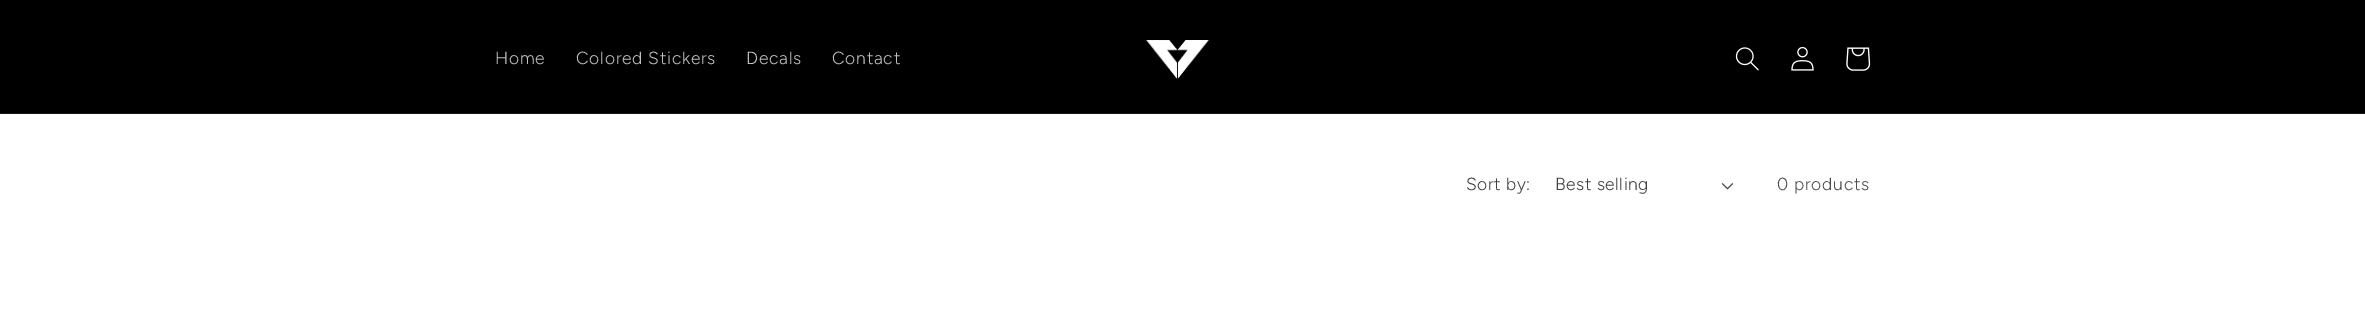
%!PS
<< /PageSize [2365 324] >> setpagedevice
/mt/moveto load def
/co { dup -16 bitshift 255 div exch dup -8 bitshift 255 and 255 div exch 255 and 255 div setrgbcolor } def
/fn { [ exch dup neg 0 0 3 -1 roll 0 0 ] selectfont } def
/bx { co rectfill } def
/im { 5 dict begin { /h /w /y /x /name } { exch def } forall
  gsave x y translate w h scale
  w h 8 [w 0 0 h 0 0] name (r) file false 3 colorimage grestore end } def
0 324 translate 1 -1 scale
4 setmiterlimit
0 0 2365 324 16#FFFFFF bx
0 0 2365 113 16#000000 bx
0 113 2365 1 16#141414 bx
(media/1.raw) 1146 40 63 39 im
(media/2.raw) 1735 47 24 24 im
(media/3.raw) 1791 46 23 25 im
(media/4.raw) 1846 47 25 24 im
(media/5.raw) 1721 183 13 7 im
/Figtree-Light 17.5 fn
16#BFBFBF co
495 64 mt .75 0 (Home) ashow
576 64 mt .75 0 (Colored Stickers) ashow
746 64 mt .75 0 (Decals) ashow
832 64 mt .75 0 (Contact) ashow
16#404040 co
1466 190 mt .5 0 (Sort by:) ashow
1555 190 mt .5 0 (Best selling) ashow
16#4D4D4D co
1777 190 mt .75 0 (0 products) ashow
showpage
